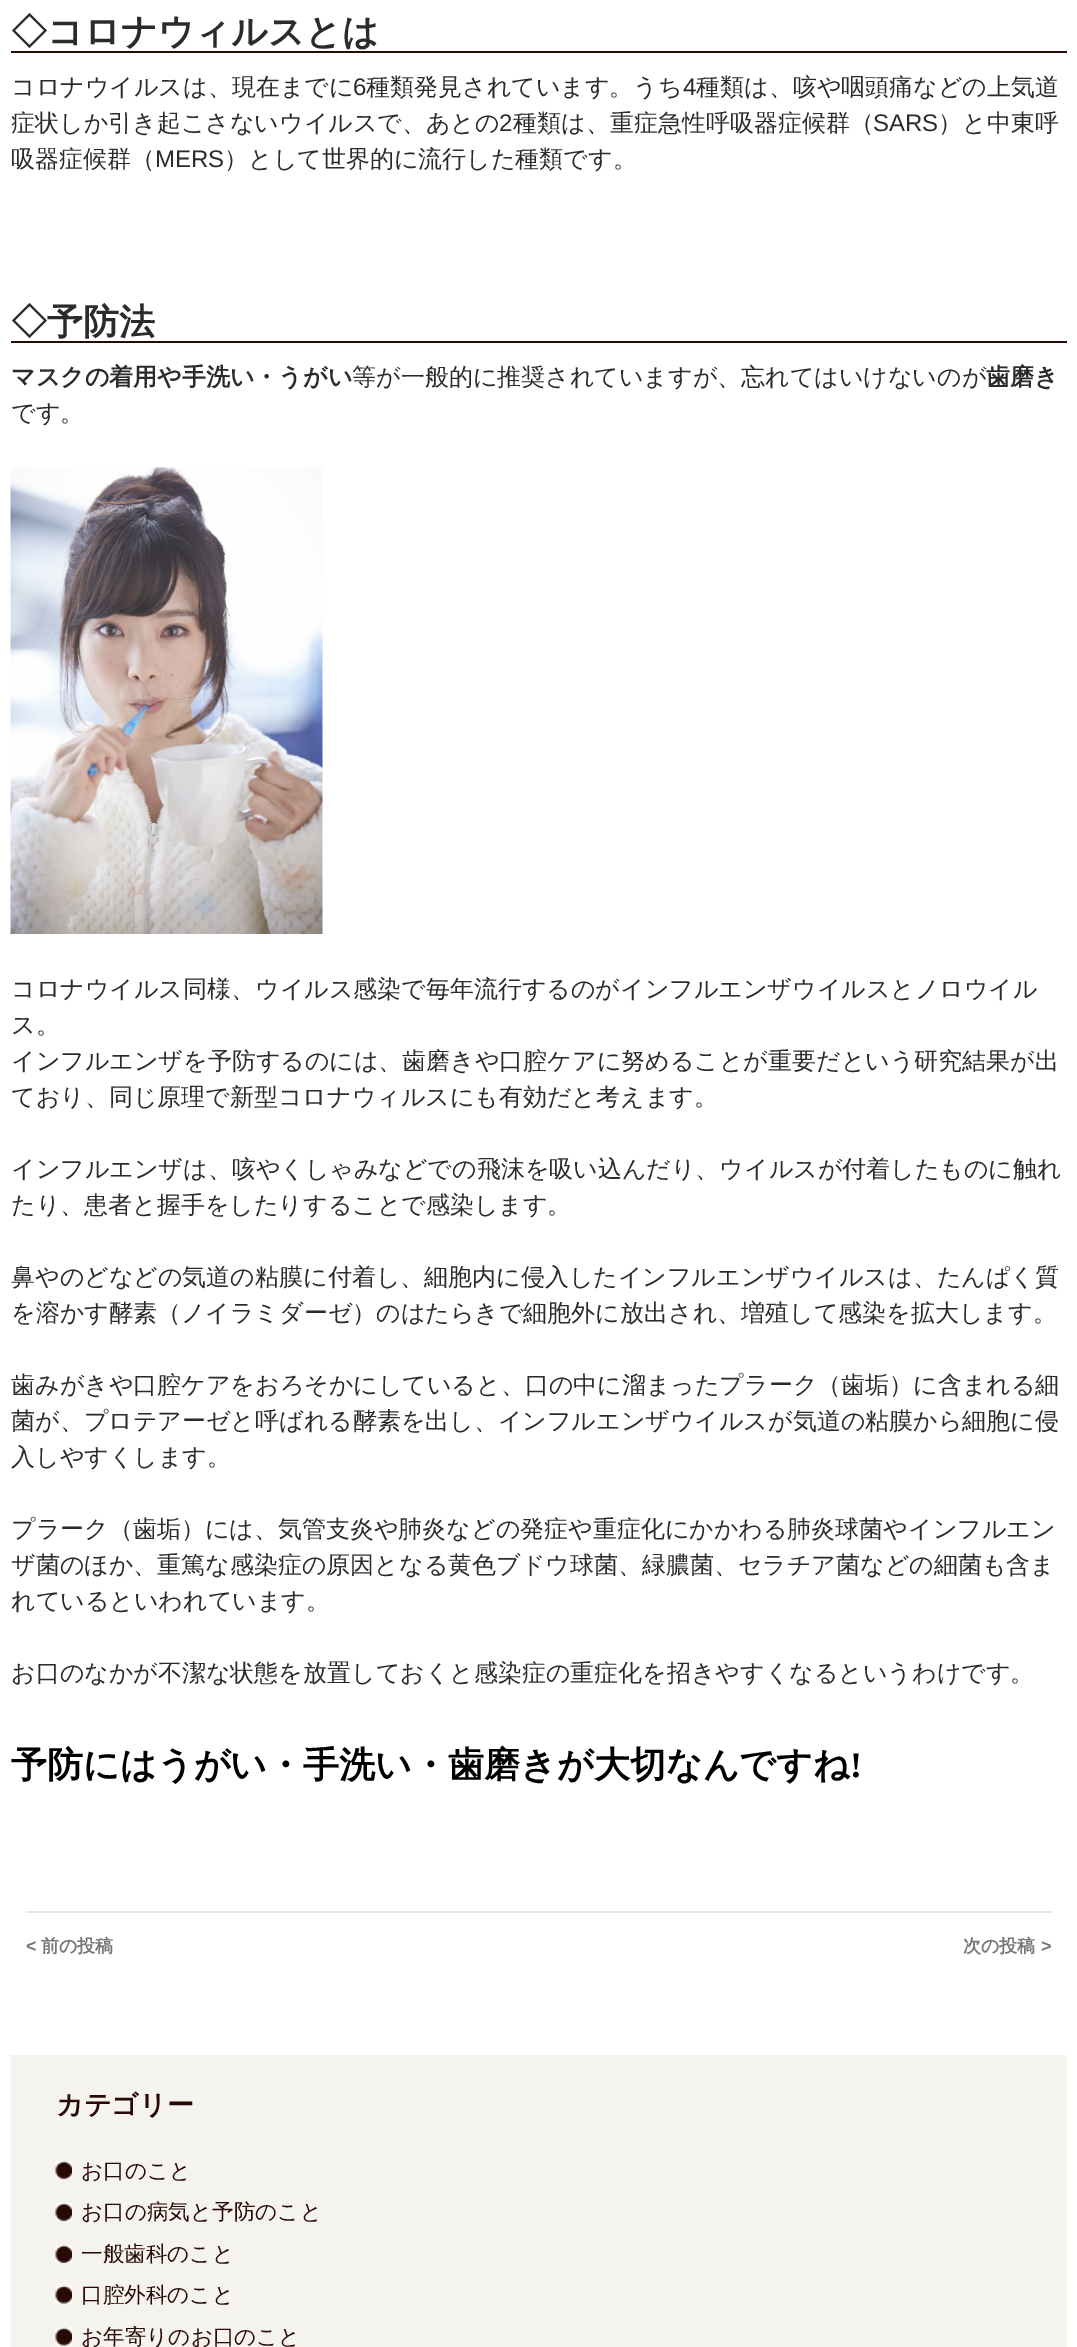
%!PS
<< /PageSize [1077 2347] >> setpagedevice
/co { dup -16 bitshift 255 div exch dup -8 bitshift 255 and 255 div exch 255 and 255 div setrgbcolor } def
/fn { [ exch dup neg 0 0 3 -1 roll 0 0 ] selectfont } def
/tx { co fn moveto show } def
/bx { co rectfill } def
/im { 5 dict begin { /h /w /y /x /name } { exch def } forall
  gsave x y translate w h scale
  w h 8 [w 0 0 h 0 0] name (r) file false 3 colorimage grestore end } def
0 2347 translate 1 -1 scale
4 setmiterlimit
0 0 1077 2347 16#FFFFFF bx
11 51 1056 2 16#280906 bx
11 341 1056 2 16#280906 bx
(media/1.raw) 10 467 313 467 im
26 1911 1026 2 16#E6E6E6 bx
11 2055 1056 292 16#F5F3ED bx
(media/2.raw) 55 2161 17 18 im
(media/2.raw) 55 2203 17 18 im
(media/2.raw) 55 2245 17 18 im
(media/3.raw) 55 2285 17 19 im
(media/3.raw) 55 2327 17 19 im
(◇コロナウィルスとは) 11 44 /WenQuanYiZenHei-Bold 36 16#2B2B2B tx
(コロナウイルスは、現在までに) 11 95 /WenQuanYiZenHei-Medium 24 16#2B2B2B tx
(6) 353 95 /LiberationSans-Regular 24 16#2B2B2B tx
(種類発見されています。うち) 366 95 /WenQuanYiZenHei-Medium 24 16#2B2B2B tx
(4) 683 95 /LiberationSans-Regular 24 16#2B2B2B tx
(種類は、咳や咽頭痛などの上気道) 696 95 /WenQuanYiZenHei-Medium 24 16#2B2B2B tx
(症状しか引き起こさないウイルスで、あとの) 11 131 /WenQuanYiZenHei-Medium 24 16#2B2B2B tx
(2) 499 131 /LiberationSans-Regular 24 16#2B2B2B tx
(種類は、重症急性呼吸器症候群（) 513 131 /WenQuanYiZenHei-Medium 24 16#2B2B2B tx
(SARS) 873 131 /LiberationSans-Regular 24 16#2B2B2B tx
(）と中東呼) 938 131 /WenQuanYiZenHei-Medium 24 16#2B2B2B tx
(吸器症候群（) 11 167 /WenQuanYiZenHei-Medium 24 16#2B2B2B tx
(MERS) 155 167 /LiberationSans-Regular 24 16#2B2B2B tx
(）として世界的に流行した種類です。) 224 167 /WenQuanYiZenHei-Medium 24 16#2B2B2B tx
(◇予防法) 11 334 /WenQuanYiZenHei-Bold 36 16#2B2B2B tx
(マスクの着用や手洗い・うがい) 11 385 /WenQuanYiZenHei-Bold 24 16#2B2B2B tx
(等が一般的に推奨されていますが、忘れてはいけないのが) 352 385 /WenQuanYiZenHei-Medium 24 16#2B2B2B tx
(歯磨き) 986 385 /WenQuanYiZenHei-Bold 24 16#2B2B2B tx
(です。) 11 421 /WenQuanYiZenHei-Medium 24 16#2B2B2B tx
(コロナウイルス同様、ウイルス感染で毎年流行するのがインフルエンザウイルスとノロウイル) 11 997 /WenQuanYiZenHei-Medium 24 16#2B2B2B tx
(ス。) 11 1033 /WenQuanYiZenHei-Medium 24 16#2B2B2B tx
(インフルエンザを予防するのには、歯磨きや口腔ケアに努めることが重要だという研究結果が出) 11 1069 /WenQuanYiZenHei-Medium 24 16#2B2B2B tx
(ており、同じ原理で新型コロナウィルスにも有効だと考えます。) 11 1105 /WenQuanYiZenHei-Medium 24 16#2B2B2B tx
(インフルエンザは、咳やくしゃみなどでの飛沫を吸い込んだり、ウイルスが付着したものに触れ) 11 1177 /WenQuanYiZenHei-Medium 24 16#2B2B2B tx
(たり、患者と握手をしたりすることで感染します。) 11 1213 /WenQuanYiZenHei-Medium 24 16#2B2B2B tx
(鼻やのどなどの気道の粘膜に付着し、細胞内に侵入したインフルエンザウイルスは、たんぱく質) 11 1285 /WenQuanYiZenHei-Medium 24 16#2B2B2B tx
(を溶かす酵素（ノイラミダーゼ）のはたらきで細胞外に放出され、増殖して感染を拡大します。) 11 1321 /WenQuanYiZenHei-Medium 24 16#2B2B2B tx
(歯みがきや口腔ケアをおろそかにしていると、口の中に溜まったプラーク（歯垢）に含まれる細) 11 1393 /WenQuanYiZenHei-Medium 24 16#2B2B2B tx
(菌が、プロテアーゼと呼ばれる酵素を出し、インフルエンザウイルスが気道の粘膜から細胞に侵) 11 1429 /WenQuanYiZenHei-Medium 24 16#2B2B2B tx
(入しやすくします。) 11 1465 /WenQuanYiZenHei-Medium 24 16#2B2B2B tx
(プラーク（歯垢）には、気管支炎や肺炎などの発症や重症化にかかわる肺炎球菌やインフルエン) 11 1537 /WenQuanYiZenHei-Medium 24 16#2B2B2B tx
(ザ菌のほか、重篤な感染症の原因となる黄色ブドウ球菌、緑膿菌、セラチア菌などの細菌も含ま) 11 1573 /WenQuanYiZenHei-Medium 24 16#2B2B2B tx
(れているといわれています。) 11 1609 /WenQuanYiZenHei-Medium 24 16#2B2B2B tx
(お口のなかが不潔な状態を放置しておくと感染症の重症化を招きやすくなるというわけです。) 11 1681 /WenQuanYiZenHei-Medium 24 16#2B2B2B tx
(予防にはうがい・手洗い・歯磨きが大切なんですね) 11 1777 /WenQuanYiZenHei-Bold 36 16#000000 tx
(!) 850 1777 /LiberationSerif-Bold 36 16#000000 tx
(<) 26 1952 /LiberationSans-Bold 18 16#767676 tx
(前の投稿) 41 1952 /WenQuanYiZenHei-Bold 18 16#767676 tx
(次の投稿) 963 1952 /WenQuanYiZenHei-Bold 18 16#767676 tx
(>) 1041 1952 /LiberationSans-Bold 18 16#767676 tx
(カテゴリー) 56 2114 /WenQuanYiZenHei-Bold 27 16#280906 tx
(お口のこと) 81 2178 /WenQuanYiZenHei-Medium 21.6 16#280906 tx
(お口の病気と予防のこと) 81 2219 /WenQuanYiZenHei-Medium 21.6 16#280906 tx
(一般歯科のこと) 81 2261 /WenQuanYiZenHei-Medium 21.6 16#280906 tx
(口腔外科のこと) 81 2302 /WenQuanYiZenHei-Medium 21.6 16#280906 tx
(お年寄りのお口のこと) 81 2344 /WenQuanYiZenHei-Medium 21.6 16#280906 tx
showpage
